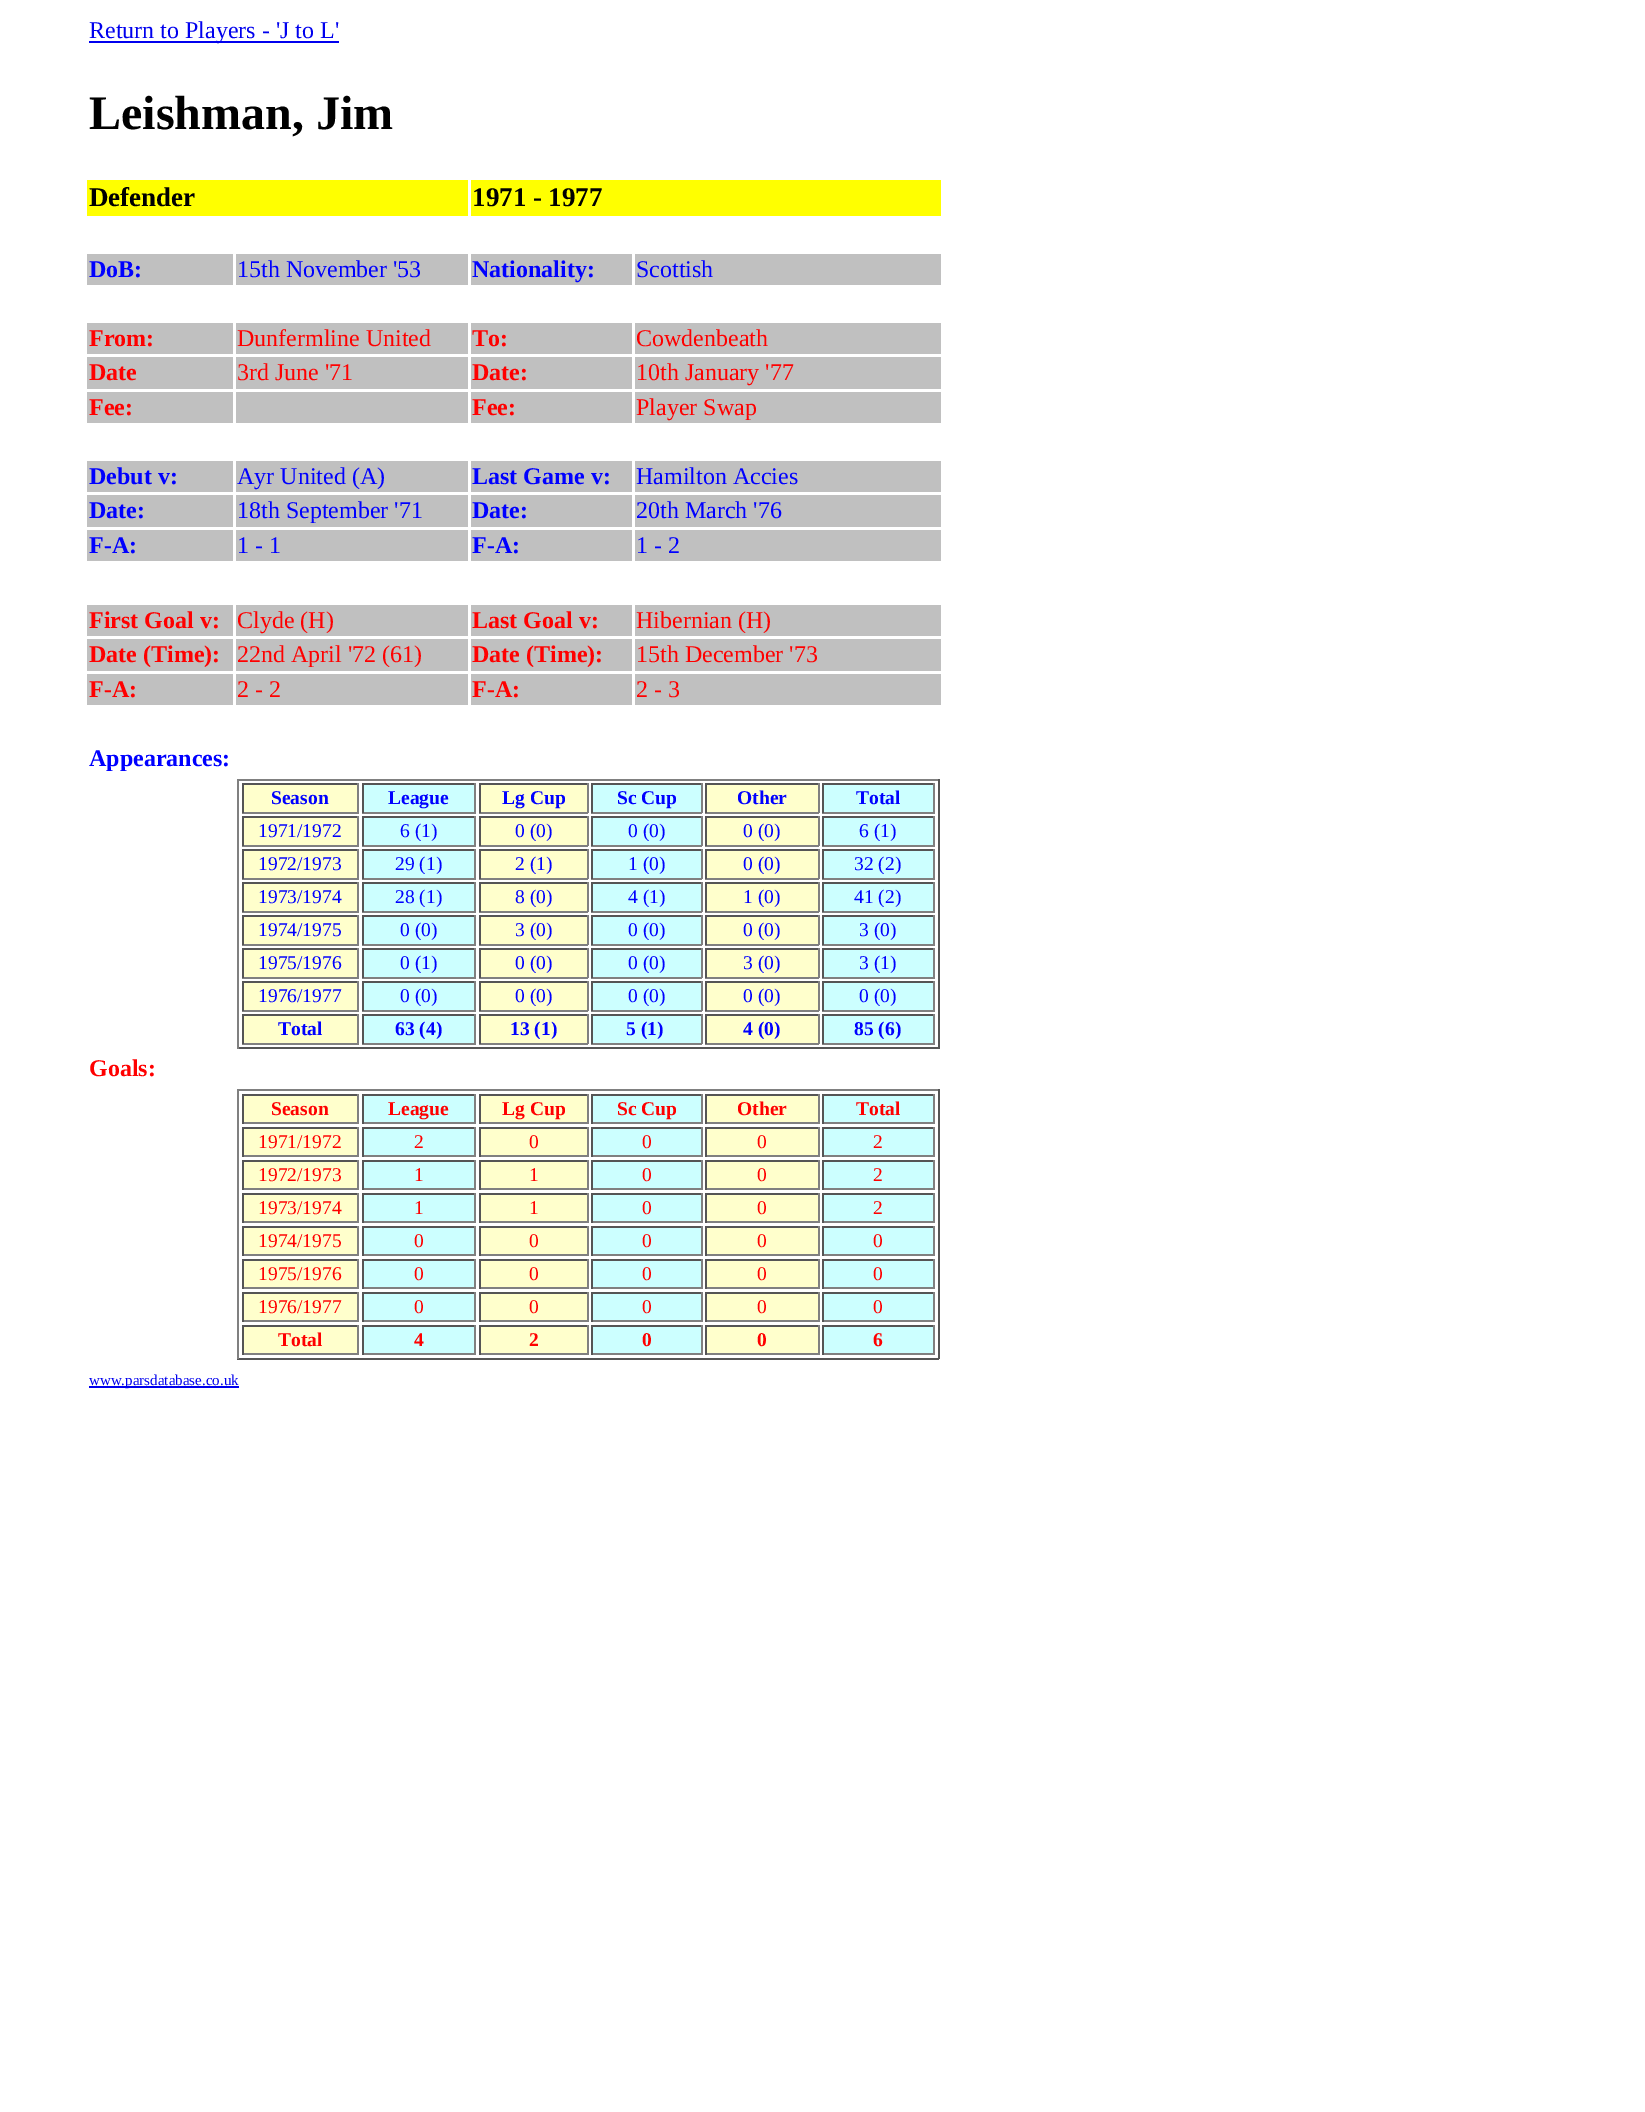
%!PS
<< /PageSize [1645 2112] >> setpagedevice
/co { dup -16 bitshift 255 div exch dup -8 bitshift 255 and 255 div exch 255 and 255 div setrgbcolor } def
/fn { [ exch dup neg 0 0 3 -1 roll 0 0 ] selectfont } def
/tx { co fn moveto show } def
/bx { co rectfill } def
0 2112 translate 1 -1 scale
4 setmiterlimit
0 0 1645 2112 16#FFFFFF bx
89 41 250 2 16#0000EE bx
87 180 381 36 16#FFFF00 bx
471 180 470 36 16#FFFF00 bx
87 254 146 31 16#C0C0C0 bx
236 254 232 31 16#C0C0C0 bx
471 254 161 31 16#C0C0C0 bx
635 254 306 31 16#C0C0C0 bx
87 323 146 31 16#C0C0C0 bx
236 323 232 31 16#C0C0C0 bx
471 323 161 31 16#C0C0C0 bx
635 323 306 31 16#C0C0C0 bx
87 357 146 32 16#C0C0C0 bx
236 357 232 32 16#C0C0C0 bx
471 357 161 32 16#C0C0C0 bx
635 357 306 32 16#C0C0C0 bx
87 392 146 31 16#C0C0C0 bx
236 392 232 31 16#C0C0C0 bx
471 392 161 31 16#C0C0C0 bx
635 392 306 31 16#C0C0C0 bx
87 461 146 31 16#C0C0C0 bx
236 461 232 31 16#C0C0C0 bx
471 461 161 31 16#C0C0C0 bx
635 461 306 31 16#C0C0C0 bx
87 495 146 32 16#C0C0C0 bx
236 495 232 32 16#C0C0C0 bx
471 495 161 32 16#C0C0C0 bx
635 495 306 32 16#C0C0C0 bx
87 530 146 31 16#C0C0C0 bx
236 530 232 31 16#C0C0C0 bx
471 530 161 31 16#C0C0C0 bx
635 530 306 31 16#C0C0C0 bx
87 605 146 31 16#C0C0C0 bx
236 605 232 31 16#C0C0C0 bx
471 605 161 31 16#C0C0C0 bx
635 605 306 31 16#C0C0C0 bx
87 639 146 32 16#C0C0C0 bx
236 639 232 32 16#C0C0C0 bx
471 639 161 32 16#C0C0C0 bx
635 639 306 32 16#C0C0C0 bx
87 674 146 31 16#C0C0C0 bx
236 674 232 31 16#C0C0C0 bx
471 674 161 31 16#C0C0C0 bx
635 674 306 31 16#C0C0C0 bx
237 779 702 2 16#808080 bx
938 779 2 270 16#555555 bx
237 1047 702 2 16#555555 bx
237 779 2 270 16#808080 bx
244 785 113 27 16#FFFFCC bx
242 783 117 2 16#555555 bx
357 783 2 30 16#808080 bx
242 812 117 2 16#808080 bx
242 783 2 30 16#555555 bx
364 785 110 27 16#CCFFFF bx
362 783 114 2 16#555555 bx
474 783 2 30 16#808080 bx
362 812 114 2 16#808080 bx
362 783 2 30 16#555555 bx
481 785 106 27 16#FFFFCC bx
479 783 109 2 16#555555 bx
587 783 2 30 16#808080 bx
479 812 109 2 16#808080 bx
479 783 2 30 16#555555 bx
593 785 108 27 16#CCFFFF bx
591 783 111 2 16#555555 bx
701 783 2 30 16#808080 bx
591 812 111 2 16#808080 bx
591 783 2 30 16#555555 bx
707 785 111 27 16#FFFFCC bx
705 783 114 2 16#555555 bx
818 783 2 30 16#808080 bx
705 812 114 2 16#808080 bx
705 783 2 30 16#555555 bx
824 785 109 27 16#CCFFFF bx
822 783 113 2 16#555555 bx
933 783 2 30 16#808080 bx
822 812 113 2 16#808080 bx
822 783 2 30 16#555555 bx
244 818 113 27 16#FFFFCC bx
242 816 117 2 16#555555 bx
357 816 2 30 16#808080 bx
242 845 117 2 16#808080 bx
242 816 2 30 16#555555 bx
364 818 110 27 16#CCFFFF bx
362 816 114 2 16#555555 bx
474 816 2 30 16#808080 bx
362 845 114 2 16#808080 bx
362 816 2 30 16#555555 bx
481 818 106 27 16#FFFFCC bx
479 816 109 2 16#555555 bx
587 816 2 30 16#808080 bx
479 845 109 2 16#808080 bx
479 816 2 30 16#555555 bx
593 818 108 27 16#CCFFFF bx
591 816 111 2 16#555555 bx
701 816 2 30 16#808080 bx
591 845 111 2 16#808080 bx
591 816 2 30 16#555555 bx
707 818 111 27 16#FFFFCC bx
705 816 114 2 16#555555 bx
818 816 2 30 16#808080 bx
705 845 114 2 16#808080 bx
705 816 2 30 16#555555 bx
824 818 109 27 16#CCFFFF bx
822 816 113 2 16#555555 bx
933 816 2 30 16#808080 bx
822 845 113 2 16#808080 bx
822 816 2 30 16#555555 bx
244 851 113 27 16#FFFFCC bx
242 849 117 2 16#555555 bx
357 849 2 30 16#808080 bx
242 878 117 2 16#808080 bx
242 849 2 30 16#555555 bx
364 851 110 27 16#CCFFFF bx
362 849 114 2 16#555555 bx
474 849 2 30 16#808080 bx
362 878 114 2 16#808080 bx
362 849 2 30 16#555555 bx
481 851 106 27 16#FFFFCC bx
479 849 109 2 16#555555 bx
587 849 2 30 16#808080 bx
479 878 109 2 16#808080 bx
479 849 2 30 16#555555 bx
593 851 108 27 16#CCFFFF bx
591 849 111 2 16#555555 bx
701 849 2 30 16#808080 bx
591 878 111 2 16#808080 bx
591 849 2 30 16#555555 bx
707 851 111 27 16#FFFFCC bx
705 849 114 2 16#555555 bx
818 849 2 30 16#808080 bx
705 878 114 2 16#808080 bx
705 849 2 30 16#555555 bx
824 851 109 27 16#CCFFFF bx
822 849 113 2 16#555555 bx
933 849 2 30 16#808080 bx
822 878 113 2 16#808080 bx
822 849 2 30 16#555555 bx
244 884 113 27 16#FFFFCC bx
242 882 117 2 16#555555 bx
357 882 2 30 16#808080 bx
242 911 117 2 16#808080 bx
242 882 2 30 16#555555 bx
364 884 110 27 16#CCFFFF bx
362 882 114 2 16#555555 bx
474 882 2 30 16#808080 bx
362 911 114 2 16#808080 bx
362 882 2 30 16#555555 bx
481 884 106 27 16#FFFFCC bx
479 882 109 2 16#555555 bx
587 882 2 30 16#808080 bx
479 911 109 2 16#808080 bx
479 882 2 30 16#555555 bx
593 884 108 27 16#CCFFFF bx
591 882 111 2 16#555555 bx
701 882 2 30 16#808080 bx
591 911 111 2 16#808080 bx
591 882 2 30 16#555555 bx
707 884 111 27 16#FFFFCC bx
705 882 114 2 16#555555 bx
818 882 2 30 16#808080 bx
705 911 114 2 16#808080 bx
705 882 2 30 16#555555 bx
824 884 109 27 16#CCFFFF bx
822 882 113 2 16#555555 bx
933 882 2 30 16#808080 bx
822 911 113 2 16#808080 bx
822 882 2 30 16#555555 bx
244 917 113 27 16#FFFFCC bx
242 915 117 2 16#555555 bx
357 915 2 30 16#808080 bx
242 944 117 2 16#808080 bx
242 915 2 30 16#555555 bx
364 917 110 27 16#CCFFFF bx
362 915 114 2 16#555555 bx
474 915 2 30 16#808080 bx
362 944 114 2 16#808080 bx
362 915 2 30 16#555555 bx
481 917 106 27 16#FFFFCC bx
479 915 109 2 16#555555 bx
587 915 2 30 16#808080 bx
479 944 109 2 16#808080 bx
479 915 2 30 16#555555 bx
593 917 108 27 16#CCFFFF bx
591 915 111 2 16#555555 bx
701 915 2 30 16#808080 bx
591 944 111 2 16#808080 bx
591 915 2 30 16#555555 bx
707 917 111 27 16#FFFFCC bx
705 915 114 2 16#555555 bx
818 915 2 30 16#808080 bx
705 944 114 2 16#808080 bx
705 915 2 30 16#555555 bx
824 917 109 27 16#CCFFFF bx
822 915 113 2 16#555555 bx
933 915 2 30 16#808080 bx
822 944 113 2 16#808080 bx
822 915 2 30 16#555555 bx
244 950 113 27 16#FFFFCC bx
242 948 117 2 16#555555 bx
357 948 2 30 16#808080 bx
242 977 117 2 16#808080 bx
242 948 2 30 16#555555 bx
364 950 110 27 16#CCFFFF bx
362 948 114 2 16#555555 bx
474 948 2 30 16#808080 bx
362 977 114 2 16#808080 bx
362 948 2 30 16#555555 bx
481 950 106 27 16#FFFFCC bx
479 948 109 2 16#555555 bx
587 948 2 30 16#808080 bx
479 977 109 2 16#808080 bx
479 948 2 30 16#555555 bx
593 950 108 27 16#CCFFFF bx
591 948 111 2 16#555555 bx
701 948 2 30 16#808080 bx
591 977 111 2 16#808080 bx
591 948 2 30 16#555555 bx
707 950 111 27 16#FFFFCC bx
705 948 114 2 16#555555 bx
818 948 2 30 16#808080 bx
705 977 114 2 16#808080 bx
705 948 2 30 16#555555 bx
824 950 109 27 16#CCFFFF bx
822 948 113 2 16#555555 bx
933 948 2 30 16#808080 bx
822 977 113 2 16#808080 bx
822 948 2 30 16#555555 bx
244 983 113 27 16#FFFFCC bx
242 981 117 2 16#555555 bx
357 981 2 30 16#808080 bx
242 1010 117 2 16#808080 bx
242 981 2 30 16#555555 bx
364 983 110 27 16#CCFFFF bx
362 981 114 2 16#555555 bx
474 981 2 30 16#808080 bx
362 1010 114 2 16#808080 bx
362 981 2 30 16#555555 bx
481 983 106 27 16#FFFFCC bx
479 981 109 2 16#555555 bx
587 981 2 30 16#808080 bx
479 1010 109 2 16#808080 bx
479 981 2 30 16#555555 bx
593 983 108 27 16#CCFFFF bx
591 981 111 2 16#555555 bx
701 981 2 30 16#808080 bx
591 1010 111 2 16#808080 bx
591 981 2 30 16#555555 bx
707 983 111 27 16#FFFFCC bx
705 981 114 2 16#555555 bx
818 981 2 30 16#808080 bx
705 1010 114 2 16#808080 bx
705 981 2 30 16#555555 bx
824 983 109 27 16#CCFFFF bx
822 981 113 2 16#555555 bx
933 981 2 30 16#808080 bx
822 1010 113 2 16#808080 bx
822 981 2 30 16#555555 bx
244 1016 113 27 16#FFFFCC bx
242 1014 117 2 16#555555 bx
357 1014 2 30 16#808080 bx
242 1043 117 2 16#808080 bx
242 1014 2 30 16#555555 bx
364 1016 110 27 16#CCFFFF bx
362 1014 114 2 16#555555 bx
474 1014 2 30 16#808080 bx
362 1043 114 2 16#808080 bx
362 1014 2 30 16#555555 bx
481 1016 106 27 16#FFFFCC bx
479 1014 109 2 16#555555 bx
587 1014 2 30 16#808080 bx
479 1043 109 2 16#808080 bx
479 1014 2 30 16#555555 bx
593 1016 108 27 16#CCFFFF bx
591 1014 111 2 16#555555 bx
701 1014 2 30 16#808080 bx
591 1043 111 2 16#808080 bx
591 1014 2 30 16#555555 bx
707 1016 111 27 16#FFFFCC bx
705 1014 114 2 16#555555 bx
818 1014 2 30 16#808080 bx
705 1043 114 2 16#808080 bx
705 1014 2 30 16#555555 bx
824 1016 109 27 16#CCFFFF bx
822 1014 113 2 16#555555 bx
933 1014 2 30 16#808080 bx
822 1043 113 2 16#808080 bx
822 1014 2 30 16#555555 bx
237 1089 702 2 16#808080 bx
938 1089 2 270 16#555555 bx
237 1358 702 2 16#555555 bx
237 1089 2 270 16#808080 bx
244 1096 113 26 16#FFFFCC bx
242 1094 117 2 16#555555 bx
357 1094 2 30 16#808080 bx
242 1122 117 2 16#808080 bx
242 1094 2 30 16#555555 bx
364 1096 110 26 16#CCFFFF bx
362 1094 114 2 16#555555 bx
474 1094 2 30 16#808080 bx
362 1122 114 2 16#808080 bx
362 1094 2 30 16#555555 bx
481 1096 106 26 16#FFFFCC bx
479 1094 109 2 16#555555 bx
587 1094 2 30 16#808080 bx
479 1122 109 2 16#808080 bx
479 1094 2 30 16#555555 bx
593 1096 108 26 16#CCFFFF bx
591 1094 111 2 16#555555 bx
701 1094 2 30 16#808080 bx
591 1122 111 2 16#808080 bx
591 1094 2 30 16#555555 bx
707 1096 111 26 16#FFFFCC bx
705 1094 114 2 16#555555 bx
818 1094 2 30 16#808080 bx
705 1122 114 2 16#808080 bx
705 1094 2 30 16#555555 bx
824 1096 109 26 16#CCFFFF bx
822 1094 113 2 16#555555 bx
933 1094 2 30 16#808080 bx
822 1122 113 2 16#808080 bx
822 1094 2 30 16#555555 bx
244 1129 113 26 16#FFFFCC bx
242 1127 117 2 16#555555 bx
357 1127 2 30 16#808080 bx
242 1155 117 2 16#808080 bx
242 1127 2 30 16#555555 bx
364 1129 110 26 16#CCFFFF bx
362 1127 114 2 16#555555 bx
474 1127 2 30 16#808080 bx
362 1155 114 2 16#808080 bx
362 1127 2 30 16#555555 bx
481 1129 106 26 16#FFFFCC bx
479 1127 109 2 16#555555 bx
587 1127 2 30 16#808080 bx
479 1155 109 2 16#808080 bx
479 1127 2 30 16#555555 bx
593 1129 108 26 16#CCFFFF bx
591 1127 111 2 16#555555 bx
701 1127 2 30 16#808080 bx
591 1155 111 2 16#808080 bx
591 1127 2 30 16#555555 bx
707 1129 111 26 16#FFFFCC bx
705 1127 114 2 16#555555 bx
818 1127 2 30 16#808080 bx
705 1155 114 2 16#808080 bx
705 1127 2 30 16#555555 bx
824 1129 109 26 16#CCFFFF bx
822 1127 113 2 16#555555 bx
933 1127 2 30 16#808080 bx
822 1155 113 2 16#808080 bx
822 1127 2 30 16#555555 bx
244 1162 113 26 16#FFFFCC bx
242 1160 117 2 16#555555 bx
357 1160 2 30 16#808080 bx
242 1188 117 2 16#808080 bx
242 1160 2 30 16#555555 bx
364 1162 110 26 16#CCFFFF bx
362 1160 114 2 16#555555 bx
474 1160 2 30 16#808080 bx
362 1188 114 2 16#808080 bx
362 1160 2 30 16#555555 bx
481 1162 106 26 16#FFFFCC bx
479 1160 109 2 16#555555 bx
587 1160 2 30 16#808080 bx
479 1188 109 2 16#808080 bx
479 1160 2 30 16#555555 bx
593 1162 108 26 16#CCFFFF bx
591 1160 111 2 16#555555 bx
701 1160 2 30 16#808080 bx
591 1188 111 2 16#808080 bx
591 1160 2 30 16#555555 bx
707 1162 111 26 16#FFFFCC bx
705 1160 114 2 16#555555 bx
818 1160 2 30 16#808080 bx
705 1188 114 2 16#808080 bx
705 1160 2 30 16#555555 bx
824 1162 109 26 16#CCFFFF bx
822 1160 113 2 16#555555 bx
933 1160 2 30 16#808080 bx
822 1188 113 2 16#808080 bx
822 1160 2 30 16#555555 bx
244 1195 113 26 16#FFFFCC bx
242 1193 117 2 16#555555 bx
357 1193 2 30 16#808080 bx
242 1221 117 2 16#808080 bx
242 1193 2 30 16#555555 bx
364 1195 110 26 16#CCFFFF bx
362 1193 114 2 16#555555 bx
474 1193 2 30 16#808080 bx
362 1221 114 2 16#808080 bx
362 1193 2 30 16#555555 bx
481 1195 106 26 16#FFFFCC bx
479 1193 109 2 16#555555 bx
587 1193 2 30 16#808080 bx
479 1221 109 2 16#808080 bx
479 1193 2 30 16#555555 bx
593 1195 108 26 16#CCFFFF bx
591 1193 111 2 16#555555 bx
701 1193 2 30 16#808080 bx
591 1221 111 2 16#808080 bx
591 1193 2 30 16#555555 bx
707 1195 111 26 16#FFFFCC bx
705 1193 114 2 16#555555 bx
818 1193 2 30 16#808080 bx
705 1221 114 2 16#808080 bx
705 1193 2 30 16#555555 bx
824 1195 109 26 16#CCFFFF bx
822 1193 113 2 16#555555 bx
933 1193 2 30 16#808080 bx
822 1221 113 2 16#808080 bx
822 1193 2 30 16#555555 bx
244 1228 113 26 16#FFFFCC bx
242 1226 117 2 16#555555 bx
357 1226 2 30 16#808080 bx
242 1254 117 2 16#808080 bx
242 1226 2 30 16#555555 bx
364 1228 110 26 16#CCFFFF bx
362 1226 114 2 16#555555 bx
474 1226 2 30 16#808080 bx
362 1254 114 2 16#808080 bx
362 1226 2 30 16#555555 bx
481 1228 106 26 16#FFFFCC bx
479 1226 109 2 16#555555 bx
587 1226 2 30 16#808080 bx
479 1254 109 2 16#808080 bx
479 1226 2 30 16#555555 bx
593 1228 108 26 16#CCFFFF bx
591 1226 111 2 16#555555 bx
701 1226 2 30 16#808080 bx
591 1254 111 2 16#808080 bx
591 1226 2 30 16#555555 bx
707 1228 111 26 16#FFFFCC bx
705 1226 114 2 16#555555 bx
818 1226 2 30 16#808080 bx
705 1254 114 2 16#808080 bx
705 1226 2 30 16#555555 bx
824 1228 109 26 16#CCFFFF bx
822 1226 113 2 16#555555 bx
933 1226 2 30 16#808080 bx
822 1254 113 2 16#808080 bx
822 1226 2 30 16#555555 bx
244 1261 113 26 16#FFFFCC bx
242 1259 117 2 16#555555 bx
357 1259 2 30 16#808080 bx
242 1287 117 2 16#808080 bx
242 1259 2 30 16#555555 bx
364 1261 110 26 16#CCFFFF bx
362 1259 114 2 16#555555 bx
474 1259 2 30 16#808080 bx
362 1287 114 2 16#808080 bx
362 1259 2 30 16#555555 bx
481 1261 106 26 16#FFFFCC bx
479 1259 109 2 16#555555 bx
587 1259 2 30 16#808080 bx
479 1287 109 2 16#808080 bx
479 1259 2 30 16#555555 bx
593 1261 108 26 16#CCFFFF bx
591 1259 111 2 16#555555 bx
701 1259 2 30 16#808080 bx
591 1287 111 2 16#808080 bx
591 1259 2 30 16#555555 bx
707 1261 111 26 16#FFFFCC bx
705 1259 114 2 16#555555 bx
818 1259 2 30 16#808080 bx
705 1287 114 2 16#808080 bx
705 1259 2 30 16#555555 bx
824 1261 109 26 16#CCFFFF bx
822 1259 113 2 16#555555 bx
933 1259 2 30 16#808080 bx
822 1287 113 2 16#808080 bx
822 1259 2 30 16#555555 bx
244 1294 113 26 16#FFFFCC bx
242 1292 117 2 16#555555 bx
357 1292 2 30 16#808080 bx
242 1320 117 2 16#808080 bx
242 1292 2 30 16#555555 bx
364 1294 110 26 16#CCFFFF bx
362 1292 114 2 16#555555 bx
474 1292 2 30 16#808080 bx
362 1320 114 2 16#808080 bx
362 1292 2 30 16#555555 bx
481 1294 106 26 16#FFFFCC bx
479 1292 109 2 16#555555 bx
587 1292 2 30 16#808080 bx
479 1320 109 2 16#808080 bx
479 1292 2 30 16#555555 bx
593 1294 108 26 16#CCFFFF bx
591 1292 111 2 16#555555 bx
701 1292 2 30 16#808080 bx
591 1320 111 2 16#808080 bx
591 1292 2 30 16#555555 bx
707 1294 111 26 16#FFFFCC bx
705 1292 114 2 16#555555 bx
818 1292 2 30 16#808080 bx
705 1320 114 2 16#808080 bx
705 1292 2 30 16#555555 bx
824 1294 109 26 16#CCFFFF bx
822 1292 113 2 16#555555 bx
933 1292 2 30 16#808080 bx
822 1320 113 2 16#808080 bx
822 1292 2 30 16#555555 bx
244 1327 113 26 16#FFFFCC bx
242 1325 117 2 16#555555 bx
357 1325 2 30 16#808080 bx
242 1353 117 2 16#808080 bx
242 1325 2 30 16#555555 bx
364 1327 110 26 16#CCFFFF bx
362 1325 114 2 16#555555 bx
474 1325 2 30 16#808080 bx
362 1353 114 2 16#808080 bx
362 1325 2 30 16#555555 bx
481 1327 106 26 16#FFFFCC bx
479 1325 109 2 16#555555 bx
587 1325 2 30 16#808080 bx
479 1353 109 2 16#808080 bx
479 1325 2 30 16#555555 bx
593 1327 108 26 16#CCFFFF bx
591 1325 111 2 16#555555 bx
701 1325 2 30 16#808080 bx
591 1353 111 2 16#808080 bx
591 1325 2 30 16#555555 bx
707 1327 111 26 16#FFFFCC bx
705 1325 114 2 16#555555 bx
818 1325 2 30 16#808080 bx
705 1353 114 2 16#808080 bx
705 1325 2 30 16#555555 bx
824 1327 109 26 16#CCFFFF bx
822 1325 113 2 16#555555 bx
933 1325 2 30 16#808080 bx
822 1353 113 2 16#808080 bx
822 1325 2 30 16#555555 bx
89 1386 150 2 16#0000EE bx
(Return to Players - 'J to L') 89 38 /LiberationSerif-Regular 24 16#0000EE tx
(Leishman, Jim) 89 129 /LiberationSerif-Bold 48 16#000000 tx
(Defender) 89 206 /LiberationSerif-Bold 27 16#000000 tx
(1971 - 1977) 472 206 /LiberationSerif-Bold 27 16#000000 tx
(DoB:) 89 277 /LiberationSerif-Bold 24 16#0000FF tx
(15th November '53) 237 277 /LiberationSerif-Regular 24 16#0000FF tx
(Nationality:) 472 277 /LiberationSerif-Bold 24 16#0000FF tx
(Scottish) 636 277 /LiberationSerif-Regular 24 16#0000FF tx
(From:) 89 346 /LiberationSerif-Bold 24 16#FF0000 tx
(Dunfermline United) 237 346 /LiberationSerif-Regular 24 16#FF0000 tx
(To:) 472 346 /LiberationSerif-Bold 24 16#FF0000 tx
(Cowdenbeath) 636 346 /LiberationSerif-Regular 24 16#FF0000 tx
(Date) 89 380 /LiberationSerif-Bold 24 16#FF0000 tx
(3rd June '71) 237 380 /LiberationSerif-Regular 24 16#FF0000 tx
(Date:) 472 380 /LiberationSerif-Bold 24 16#FF0000 tx
(10th January '77) 636 380 /LiberationSerif-Regular 24 16#FF0000 tx
(Fee:) 89 415 /LiberationSerif-Bold 24 16#FF0000 tx
(Fee:) 472 415 /LiberationSerif-Bold 24 16#FF0000 tx
(Player Swap) 636 415 /LiberationSerif-Regular 24 16#FF0000 tx
(Debut v:) 89 484 /LiberationSerif-Bold 24 16#0000FF tx
(Ayr United \(A\)) 237 484 /LiberationSerif-Regular 24 16#0000FF tx
(Last Game v:) 472 484 /LiberationSerif-Bold 24 16#0000FF tx
(Hamilton Accies) 636 484 /LiberationSerif-Regular 24 16#0000FF tx
(Date:) 89 518 /LiberationSerif-Bold 24 16#0000FF tx
(18th September '71) 237 518 /LiberationSerif-Regular 24 16#0000FF tx
(Date:) 472 518 /LiberationSerif-Bold 24 16#0000FF tx
(20th March '76) 636 518 /LiberationSerif-Regular 24 16#0000FF tx
(F-A:) 89 553 /LiberationSerif-Bold 24 16#0000FF tx
(1 - 1) 237 553 /LiberationSerif-Regular 24 16#0000FF tx
(F-A:) 472 553 /LiberationSerif-Bold 24 16#0000FF tx
(1 - 2) 636 553 /LiberationSerif-Regular 24 16#0000FF tx
(First Goal v:) 89 628 /LiberationSerif-Bold 24 16#FF0000 tx
(Clyde \(H\)) 237 628 /LiberationSerif-Regular 24 16#FF0000 tx
(Last Goal v:) 472 628 /LiberationSerif-Bold 24 16#FF0000 tx
(Hibernian \(H\)) 636 628 /LiberationSerif-Regular 24 16#FF0000 tx
(Date \(Time\):) 89 662 /LiberationSerif-Bold 24 16#FF0000 tx
(22nd April '72 \(61\)) 237 662 /LiberationSerif-Regular 24 16#FF0000 tx
(Date \(Time\):) 472 662 /LiberationSerif-Bold 24 16#FF0000 tx
(15th December '73) 636 662 /LiberationSerif-Regular 24 16#FF0000 tx
(F-A:) 89 697 /LiberationSerif-Bold 24 16#FF0000 tx
(2 - 2) 237 697 /LiberationSerif-Regular 24 16#FF0000 tx
(F-A:) 472 697 /LiberationSerif-Bold 24 16#FF0000 tx
(2 - 3) 636 697 /LiberationSerif-Regular 24 16#FF0000 tx
(Appearances:) 89 766 /LiberationSerif-Bold 24 16#0000FF tx
(Season) 271 804 /LiberationSerif-Bold 19.5 16#0000FF tx
(League) 388 804 /LiberationSerif-Bold 19.5 16#0000FF tx
(Lg Cup) 502 804 /LiberationSerif-Bold 19.5 16#0000FF tx
(Sc Cup) 617 804 /LiberationSerif-Bold 19.5 16#0000FF tx
(Other) 737 804 /LiberationSerif-Bold 19.5 16#0000FF tx
(Total) 856 804 /LiberationSerif-Bold 19.5 16#0000FF tx
(1971/1972) 258 837 /LiberationSerif-Regular 19.5 16#0000FF tx
(6 \(1\)) 400 837 /LiberationSerif-Regular 19.5 16#0000FF tx
(0 \(0\)) 515 837 /LiberationSerif-Regular 19.5 16#0000FF tx
(0 \(0\)) 628 837 /LiberationSerif-Regular 19.5 16#0000FF tx
(0 \(0\)) 743 837 /LiberationSerif-Regular 19.5 16#0000FF tx
(6 \(1\)) 859 837 /LiberationSerif-Regular 19.5 16#0000FF tx
(1972/1973) 258 870 /LiberationSerif-Regular 19.5 16#0000FF tx
(29 \(1\)) 395 870 /LiberationSerif-Regular 19.5 16#0000FF tx
(2 \(1\)) 515 870 /LiberationSerif-Regular 19.5 16#0000FF tx
(1 \(0\)) 628 870 /LiberationSerif-Regular 19.5 16#0000FF tx
(0 \(0\)) 743 870 /LiberationSerif-Regular 19.5 16#0000FF tx
(32 \(2\)) 854 870 /LiberationSerif-Regular 19.5 16#0000FF tx
(1973/1974) 258 903 /LiberationSerif-Regular 19.5 16#0000FF tx
(28 \(1\)) 395 903 /LiberationSerif-Regular 19.5 16#0000FF tx
(8 \(0\)) 515 903 /LiberationSerif-Regular 19.5 16#0000FF tx
(4 \(1\)) 628 903 /LiberationSerif-Regular 19.5 16#0000FF tx
(1 \(0\)) 743 903 /LiberationSerif-Regular 19.5 16#0000FF tx
(41 \(2\)) 854 903 /LiberationSerif-Regular 19.5 16#0000FF tx
(1974/1975) 258 936 /LiberationSerif-Regular 19.5 16#0000FF tx
(0 \(0\)) 400 936 /LiberationSerif-Regular 19.5 16#0000FF tx
(3 \(0\)) 515 936 /LiberationSerif-Regular 19.5 16#0000FF tx
(0 \(0\)) 628 936 /LiberationSerif-Regular 19.5 16#0000FF tx
(0 \(0\)) 743 936 /LiberationSerif-Regular 19.5 16#0000FF tx
(3 \(0\)) 859 936 /LiberationSerif-Regular 19.5 16#0000FF tx
(1975/1976) 258 969 /LiberationSerif-Regular 19.5 16#0000FF tx
(0 \(1\)) 400 969 /LiberationSerif-Regular 19.5 16#0000FF tx
(0 \(0\)) 515 969 /LiberationSerif-Regular 19.5 16#0000FF tx
(0 \(0\)) 628 969 /LiberationSerif-Regular 19.5 16#0000FF tx
(3 \(0\)) 743 969 /LiberationSerif-Regular 19.5 16#0000FF tx
(3 \(1\)) 859 969 /LiberationSerif-Regular 19.5 16#0000FF tx
(1976/1977) 258 1002 /LiberationSerif-Regular 19.5 16#0000FF tx
(0 \(0\)) 400 1002 /LiberationSerif-Regular 19.5 16#0000FF tx
(0 \(0\)) 515 1002 /LiberationSerif-Regular 19.5 16#0000FF tx
(0 \(0\)) 628 1002 /LiberationSerif-Regular 19.5 16#0000FF tx
(0 \(0\)) 743 1002 /LiberationSerif-Regular 19.5 16#0000FF tx
(0 \(0\)) 859 1002 /LiberationSerif-Regular 19.5 16#0000FF tx
(Total) 278 1035 /LiberationSerif-Bold 19.5 16#0000FF tx
(63 \(4\)) 395 1035 /LiberationSerif-Bold 19.5 16#0000FF tx
(13 \(1\)) 510 1035 /LiberationSerif-Bold 19.5 16#0000FF tx
(5 \(1\)) 626 1035 /LiberationSerif-Bold 19.5 16#0000FF tx
(4 \(0\)) 743 1035 /LiberationSerif-Bold 19.5 16#0000FF tx
(85 \(6\)) 854 1035 /LiberationSerif-Bold 19.5 16#0000FF tx
(Goals:) 89 1076 /LiberationSerif-Bold 24 16#FF0000 tx
(Season) 271 1115 /LiberationSerif-Bold 19.5 16#FF0000 tx
(League) 388 1115 /LiberationSerif-Bold 19.5 16#FF0000 tx
(Lg Cup) 502 1115 /LiberationSerif-Bold 19.5 16#FF0000 tx
(Sc Cup) 617 1115 /LiberationSerif-Bold 19.5 16#FF0000 tx
(Other) 737 1115 /LiberationSerif-Bold 19.5 16#FF0000 tx
(Total) 856 1115 /LiberationSerif-Bold 19.5 16#FF0000 tx
(1971/1972) 258 1148 /LiberationSerif-Regular 19.5 16#FF0000 tx
(2) 414 1148 /LiberationSerif-Regular 19.5 16#FF0000 tx
(0) 529 1148 /LiberationSerif-Regular 19.5 16#FF0000 tx
(0) 642 1148 /LiberationSerif-Regular 19.5 16#FF0000 tx
(0) 757 1148 /LiberationSerif-Regular 19.5 16#FF0000 tx
(2) 873 1148 /LiberationSerif-Regular 19.5 16#FF0000 tx
(1972/1973) 258 1181 /LiberationSerif-Regular 19.5 16#FF0000 tx
(1) 414 1181 /LiberationSerif-Regular 19.5 16#FF0000 tx
(1) 529 1181 /LiberationSerif-Regular 19.5 16#FF0000 tx
(0) 642 1181 /LiberationSerif-Regular 19.5 16#FF0000 tx
(0) 757 1181 /LiberationSerif-Regular 19.5 16#FF0000 tx
(2) 873 1181 /LiberationSerif-Regular 19.5 16#FF0000 tx
(1973/1974) 258 1214 /LiberationSerif-Regular 19.5 16#FF0000 tx
(1) 414 1214 /LiberationSerif-Regular 19.5 16#FF0000 tx
(1) 529 1214 /LiberationSerif-Regular 19.5 16#FF0000 tx
(0) 642 1214 /LiberationSerif-Regular 19.5 16#FF0000 tx
(0) 757 1214 /LiberationSerif-Regular 19.5 16#FF0000 tx
(2) 873 1214 /LiberationSerif-Regular 19.5 16#FF0000 tx
(1974/1975) 258 1247 /LiberationSerif-Regular 19.5 16#FF0000 tx
(0) 414 1247 /LiberationSerif-Regular 19.5 16#FF0000 tx
(0) 529 1247 /LiberationSerif-Regular 19.5 16#FF0000 tx
(0) 642 1247 /LiberationSerif-Regular 19.5 16#FF0000 tx
(0) 757 1247 /LiberationSerif-Regular 19.5 16#FF0000 tx
(0) 873 1247 /LiberationSerif-Regular 19.5 16#FF0000 tx
(1975/1976) 258 1280 /LiberationSerif-Regular 19.5 16#FF0000 tx
(0) 414 1280 /LiberationSerif-Regular 19.5 16#FF0000 tx
(0) 529 1280 /LiberationSerif-Regular 19.5 16#FF0000 tx
(0) 642 1280 /LiberationSerif-Regular 19.5 16#FF0000 tx
(0) 757 1280 /LiberationSerif-Regular 19.5 16#FF0000 tx
(0) 873 1280 /LiberationSerif-Regular 19.5 16#FF0000 tx
(1976/1977) 258 1313 /LiberationSerif-Regular 19.5 16#FF0000 tx
(0) 414 1313 /LiberationSerif-Regular 19.5 16#FF0000 tx
(0) 529 1313 /LiberationSerif-Regular 19.5 16#FF0000 tx
(0) 642 1313 /LiberationSerif-Regular 19.5 16#FF0000 tx
(0) 757 1313 /LiberationSerif-Regular 19.5 16#FF0000 tx
(0) 873 1313 /LiberationSerif-Regular 19.5 16#FF0000 tx
(Total) 278 1346 /LiberationSerif-Bold 19.5 16#FF0000 tx
(4) 414 1346 /LiberationSerif-Bold 19.5 16#FF0000 tx
(2) 529 1346 /LiberationSerif-Bold 19.5 16#FF0000 tx
(0) 642 1346 /LiberationSerif-Bold 19.5 16#FF0000 tx
(0) 757 1346 /LiberationSerif-Bold 19.5 16#FF0000 tx
(6) 873 1346 /LiberationSerif-Bold 19.5 16#FF0000 tx
(www.parsdatabase.co.uk) 89 1385 /LiberationSerif-Regular 15 16#0000EE tx
showpage
